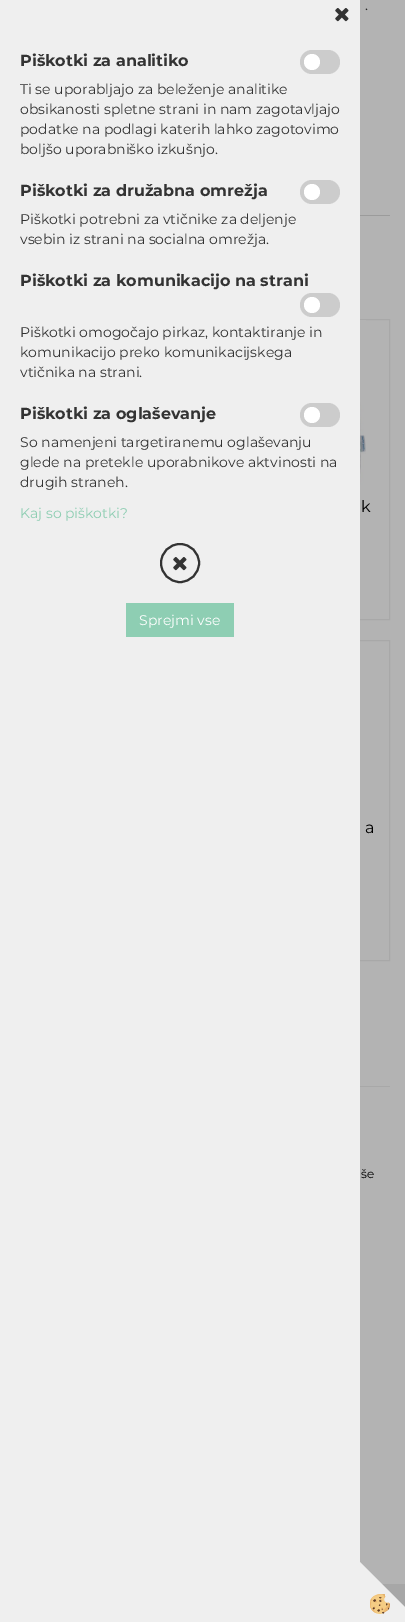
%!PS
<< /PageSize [405 1622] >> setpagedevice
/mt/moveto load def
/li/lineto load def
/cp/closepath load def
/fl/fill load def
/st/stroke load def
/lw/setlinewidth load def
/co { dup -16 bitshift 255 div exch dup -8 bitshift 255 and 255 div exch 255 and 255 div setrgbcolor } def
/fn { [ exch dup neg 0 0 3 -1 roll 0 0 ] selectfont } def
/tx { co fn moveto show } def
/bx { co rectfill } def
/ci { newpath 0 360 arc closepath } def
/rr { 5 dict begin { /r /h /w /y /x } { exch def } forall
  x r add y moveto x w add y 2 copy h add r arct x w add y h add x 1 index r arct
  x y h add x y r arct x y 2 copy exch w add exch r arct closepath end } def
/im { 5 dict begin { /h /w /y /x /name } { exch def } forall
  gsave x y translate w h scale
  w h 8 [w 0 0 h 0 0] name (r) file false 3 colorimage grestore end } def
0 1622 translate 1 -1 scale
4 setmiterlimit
0 0 405 1622 16#B3B3B3 bx
16#A8A8A8 co
218.5 319.5 171 300 rectstroke
218.5 640.5 171 320 rectstroke
0 0 360 1622 16#EFEFEF bx
(media/1.raw) 335 8 14 14 im
16#CCCCCC co
300 50 40 24 12 rr fl
16#FFFFFF co
312 62 8 ci fl
16#CCCCCC co
300 180 40 24 12 rr fl
16#FFFFFF co
312 192 8 ci fl
16#CCCCCC co
300 293 40 24 12 rr fl
16#FFFFFF co
312 305 8 ci fl
16#CCCCCC co
300 403 40 24 12 rr fl
16#FFFFFF co
312 415 8 ci fl
16#333333 co
2 lw
180 563 19 ci st
(media/1.raw) 173 557 14 14 im
126 603 108 34 16#8ECEB3 bx
382 1584 23 23 16#A7A7A7 bx
16#EFEFEF co
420 1622 mt 360 1622 li 360 1562 li cp fl
(media/2.raw) 370 1594 20 20 im
360 215 30 1 16#9B9B9B bx
(media/3.raw) 360 320 6 169 im
360 1086 30 1 16#A8A8A8 bx
(Piškotki za analitiko) 20 66 /Montserrat-Bold 16 16#333333 tx
(Ti se uporabljajo za beleženje analitike) 20 94 /Montserrat-Regular 14 16#333333 tx
(obsikanosti spletne strani in nam zagotavljajo) 20 114 /Montserrat-Regular 14 16#333333 tx
(podatke na podlagi katerih lahko zagotovimo) 20 134 /Montserrat-Regular 14 16#333333 tx
(boljšo uporabniško izkušnjo.) 20 154 /Montserrat-Regular 14 16#333333 tx
(Piškotki za družabna omrežja) 20 196 /Montserrat-Bold 16 16#333333 tx
(Piškotki potrebni za vtičnike za deljenje) 20 224 /Montserrat-Regular 14 16#333333 tx
(vsebin iz strani na socialna omrežja.) 20 244 /Montserrat-Regular 14 16#333333 tx
(Piškotki za komunikacijo na strani) 20 286 /Montserrat-Bold 16 16#333333 tx
(Piškotki omogočajo pirkaz, kontaktiranje in) 20 337 /Montserrat-Regular 14 16#333333 tx
(komunikacijo preko komunikacijskega) 20 357 /Montserrat-Regular 14 16#333333 tx
(vtičnika na strani.) 20 377 /Montserrat-Regular 14 16#333333 tx
(Piškotki za oglaševanje) 20 419 /Montserrat-Bold 16 16#333333 tx
(So namenjeni targetiranemu oglaševanju) 20 447 /Montserrat-Regular 14 16#333333 tx
(glede na pretekle uporabnikove aktvinosti na) 20 467 /Montserrat-Regular 14 16#333333 tx
(drugih straneh.) 20 487 /Montserrat-Regular 14 16#333333 tx
(Kaj so piškotki?) 20 518 /Montserrat-Regular 14 16#8ECEB3 tx
(Sprejmi vse) 139 625 /Montserrat-Regular 14 16#FFFFFF tx
(.) 365 10 /Montserrat-Regular 14 16#242424 tx
(k) 361 512 /Montserrat-Regular 16 16#000000 tx
(a) 365 833 /Montserrat-Regular 16 16#000000 tx
(še) 361 1178 /Montserrat-Regular 12 16#000000 tx
showpage
